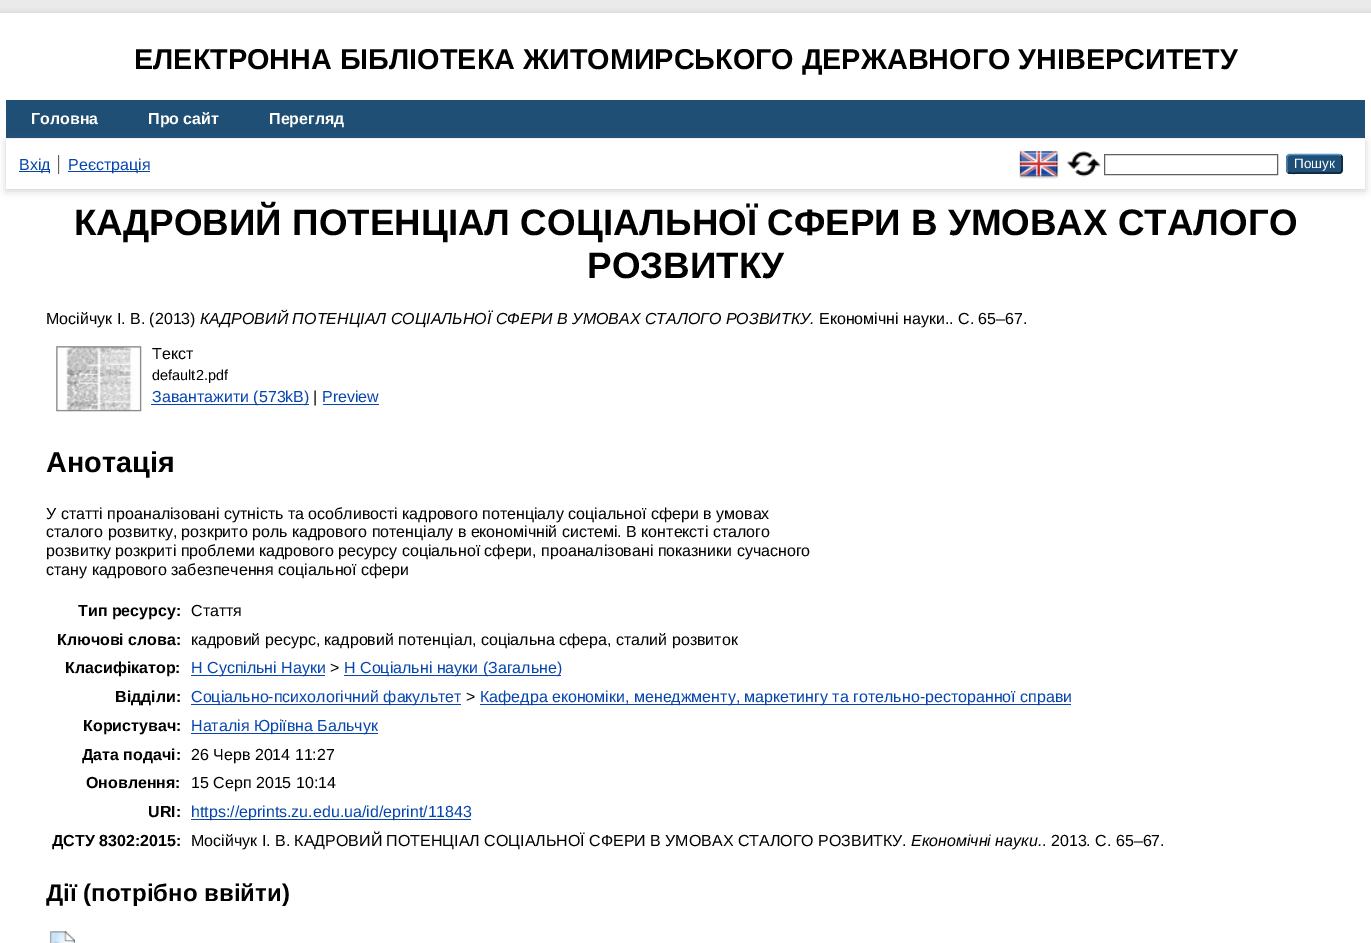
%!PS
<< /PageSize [1371 943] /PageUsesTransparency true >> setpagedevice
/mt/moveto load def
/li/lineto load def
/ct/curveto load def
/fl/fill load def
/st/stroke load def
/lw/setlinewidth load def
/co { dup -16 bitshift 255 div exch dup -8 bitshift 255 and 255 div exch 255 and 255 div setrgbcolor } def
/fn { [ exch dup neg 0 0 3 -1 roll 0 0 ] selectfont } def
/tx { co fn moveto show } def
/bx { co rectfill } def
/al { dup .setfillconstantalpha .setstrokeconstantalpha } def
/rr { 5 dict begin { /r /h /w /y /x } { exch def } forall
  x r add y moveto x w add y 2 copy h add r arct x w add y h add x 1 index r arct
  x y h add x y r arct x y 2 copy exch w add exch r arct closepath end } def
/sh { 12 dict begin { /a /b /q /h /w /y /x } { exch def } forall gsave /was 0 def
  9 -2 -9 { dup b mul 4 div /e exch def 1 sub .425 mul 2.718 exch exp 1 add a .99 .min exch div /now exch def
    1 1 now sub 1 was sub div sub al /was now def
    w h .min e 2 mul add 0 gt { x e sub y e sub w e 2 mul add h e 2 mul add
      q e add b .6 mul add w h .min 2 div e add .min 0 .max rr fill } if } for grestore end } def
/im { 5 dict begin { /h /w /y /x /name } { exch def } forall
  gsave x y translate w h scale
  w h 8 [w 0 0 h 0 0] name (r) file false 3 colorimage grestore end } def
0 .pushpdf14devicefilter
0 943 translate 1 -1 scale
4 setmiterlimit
0 0 1371 943 16#EAEAEA bx
16#646464 co
0 15 1371 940 0 4 .3 sh
0 13 1371 930 16#FFFFFF bx
6 100 1359 38 16#204F76 bx
16#646464 co
6 141 1359 50 0 4 .3 sh
6 139 1359 50 16#FFFFFF bx
58 155 1 19 16#606060 bx
19 171 31 1 16#0645AD bx
59 155 1 19 16#E8E8E8 bx
68 171 82 1 16#0645AD bx
(media/1.raw) 1019 151 40 28 im
(media/2.raw) 1066 151 35 26 im
16#606060 co
1104.5 154.5 173 20 rectstroke
16#1F4F76 co
1286 154 57 20 4 rr fl
16#5B97C7 co
1.2 lw
1288 155.5 mt 1289.5 154.5 li 1339 154.5 li 1341 155.5 li st
16#0D2131 co
1341 155.5 mt 1343 157.5 1342 161.5 1342 164 ct 1342 174.5 1342.5 173 1330.5 173 ct 1298 173 li 1297.5 173 1290 174.5 1288 172 ct st
16#5287B3 co
1288 172 mt 1286 170.5 1287 166 1287 164 ct 1287 161.5 1286 157 1288 155.5 ct st
(media/3.raw) 56 346 86 66 im
151 404 158 1 16#0645AD bx
323 404 56 1 16#0645AD bx
191 675 134 1 16#0645AD bx
344 675 217 1 16#0645AD bx
191 704 270 1 16#0645AD bx
480 704 591 1 16#0645AD bx
191 733 187 1 16#0645AD bx
191 819 280 1 16#0645AD bx
(media/4.raw) 49 931 26 12 im
(ЕЛЕКТРОННА БІБЛІОТЕКА ЖИТОМИРСЬКОГО ДЕРЖАВНОГО УНІВЕРСИТЕТУ) 134 69 /LiberationSans-Bold 28.8 16#000000 tx
(Головна) 31 124 /LiberationSans-Bold 16 16#FFFFFF tx
(Про сайт) 148 124 /LiberationSans-Bold 16 16#FFFFFF tx
(Перегляд) 269 124 /LiberationSans-Bold 16 16#FFFFFF tx
(Вхід) 19 170 /LiberationSans-Regular 16 16#0645AD tx
(Реєстрація) 68 170 /LiberationSans-Regular 16 16#0645AD tx
(Пошук) 1294 168 /LiberationSans-Regular 13.5 16#FFFFFF tx
(КАДРОВИЙ ПОТЕНЦІАЛ СОЦІАЛЬНОЇ СФЕРИ В УМОВАХ СТАЛОГО) 74 235 /LiberationSans-Bold 36.8 16#000000 tx
(РОЗВИТКУ) 587 278 /LiberationSans-Bold 36.8 16#000000 tx
(Мосійчук І. В. \(2013\)) 46 324 /LiberationSans-Regular 16 16#000000 tx
(КАДРОВИЙ ПОТЕНЦІАЛ СОЦІАЛЬНОЇ СФЕРИ В УМОВАХ СТАЛОГО РОЗВИТКУ.) 200 324 /LiberationSans-Italic 16 16#000000 tx
(Економічні науки.. С. 65–67.) 819 324 /LiberationSans-Regular 16 16#000000 tx
(Текст) 152 359 /LiberationSans-Regular 16 16#000000 tx
(default2.pdf) 152 380 /LiberationSans-Regular 14.5 16#000000 tx
(Завантажити \(573kB\)) 152 402 /LiberationSans-Regular 16 16#0645AD tx
(|) 313 402 /LiberationSans-Regular 16 16#000000 tx
(Preview) 322 402 /LiberationSans-Regular 16 16#0645AD tx
(Анотація) 46 472 /LiberationSans-Bold 28.8 16#000000 tx
(У статті проаналізовані сутність та особливості кадрового потенціалу соціальної сфери в умовах) 46 519 /LiberationSans-Regular 16 16#000000 tx
(сталого розвитку, розкрито роль кадрового потенціалу в економічній системі. В контексті сталого) 46 537 /LiberationSans-Regular 16 16#000000 tx
(розвитку розкриті проблеми кадрового ресурсу соціальної сфери, проаналізовані показники сучасного) 46 556 /LiberationSans-Regular 16 16#000000 tx
(стану кадрового забезпечення соціальної сфери) 46 575 /LiberationSans-Regular 16 16#000000 tx
(Тип ресурсу:) 78 616 /LiberationSans-Bold 16 16#000000 tx
(Стаття) 191 616 /LiberationSans-Regular 16 16#000000 tx
(Ключові слова:) 57 645 /LiberationSans-Bold 16 16#000000 tx
(кадровий ресурс, кадровий потенціал, соціальна сфера, сталий розвиток) 191 645 /LiberationSans-Regular 16 16#000000 tx
(Класифікатор:) 65 673 /LiberationSans-Bold 16 16#000000 tx
(H Суспільні Науки) 191 673 /LiberationSans-Regular 16 16#0645AD tx
(>) 330 673 /LiberationSans-Regular 16 16#000000 tx
(H Соціальні науки \(Загальне\)) 344 673 /LiberationSans-Regular 16 16#0645AD tx
(Відділи:) 115 702 /LiberationSans-Bold 16 16#000000 tx
(Соціально-психологічний факультет) 191 702 /LiberationSans-Regular 16 16#0645AD tx
(>) 466 702 /LiberationSans-Regular 16 16#000000 tx
(Кафедра економіки, менеджменту, маркетингу та готельно-ресторанної справи) 480 702 /LiberationSans-Regular 16 16#0645AD tx
(Користувач:) 83 731 /LiberationSans-Bold 16 16#000000 tx
(Наталія Юріївна Бальчук) 191 731 /LiberationSans-Regular 16 16#0645AD tx
(Дата подачі:) 82 760 /LiberationSans-Bold 16 16#000000 tx
(26 Черв 2014 11:27) 191 760 /LiberationSans-Regular 16 16#000000 tx
(Оновлення:) 86 788 /LiberationSans-Bold 16 16#000000 tx
(15 Серп 2015 10:14) 191 788 /LiberationSans-Regular 16 16#000000 tx
(URI:) 148 817 /LiberationSans-Bold 16 16#000000 tx
(https://eprints.zu.edu.ua/id/eprint/11843) 191 817 /LiberationSans-Regular 16 16#0645AD tx
(ДСТУ 8302:2015:) 52 846 /LiberationSans-Bold 16 16#000000 tx
(Мосійчук І. В. КАДРОВИЙ ПОТЕНЦІАЛ СОЦІАЛЬНОЇ СФЕРИ В УМОВАХ СТАЛОГО РОЗВИТКУ.) 191 846 /LiberationSans-Regular 16 16#000000 tx
(Економічні науки.) 911 846 /LiberationSans-Italic 16 16#000000 tx
(. 2013. С. 65–67.) 1042 846 /LiberationSans-Regular 16 16#000000 tx
(Дії \(потрібно ввійти\)) 46 901 /LiberationSans-Bold 24 16#000000 tx
.poppdf14devicefilter showpage
